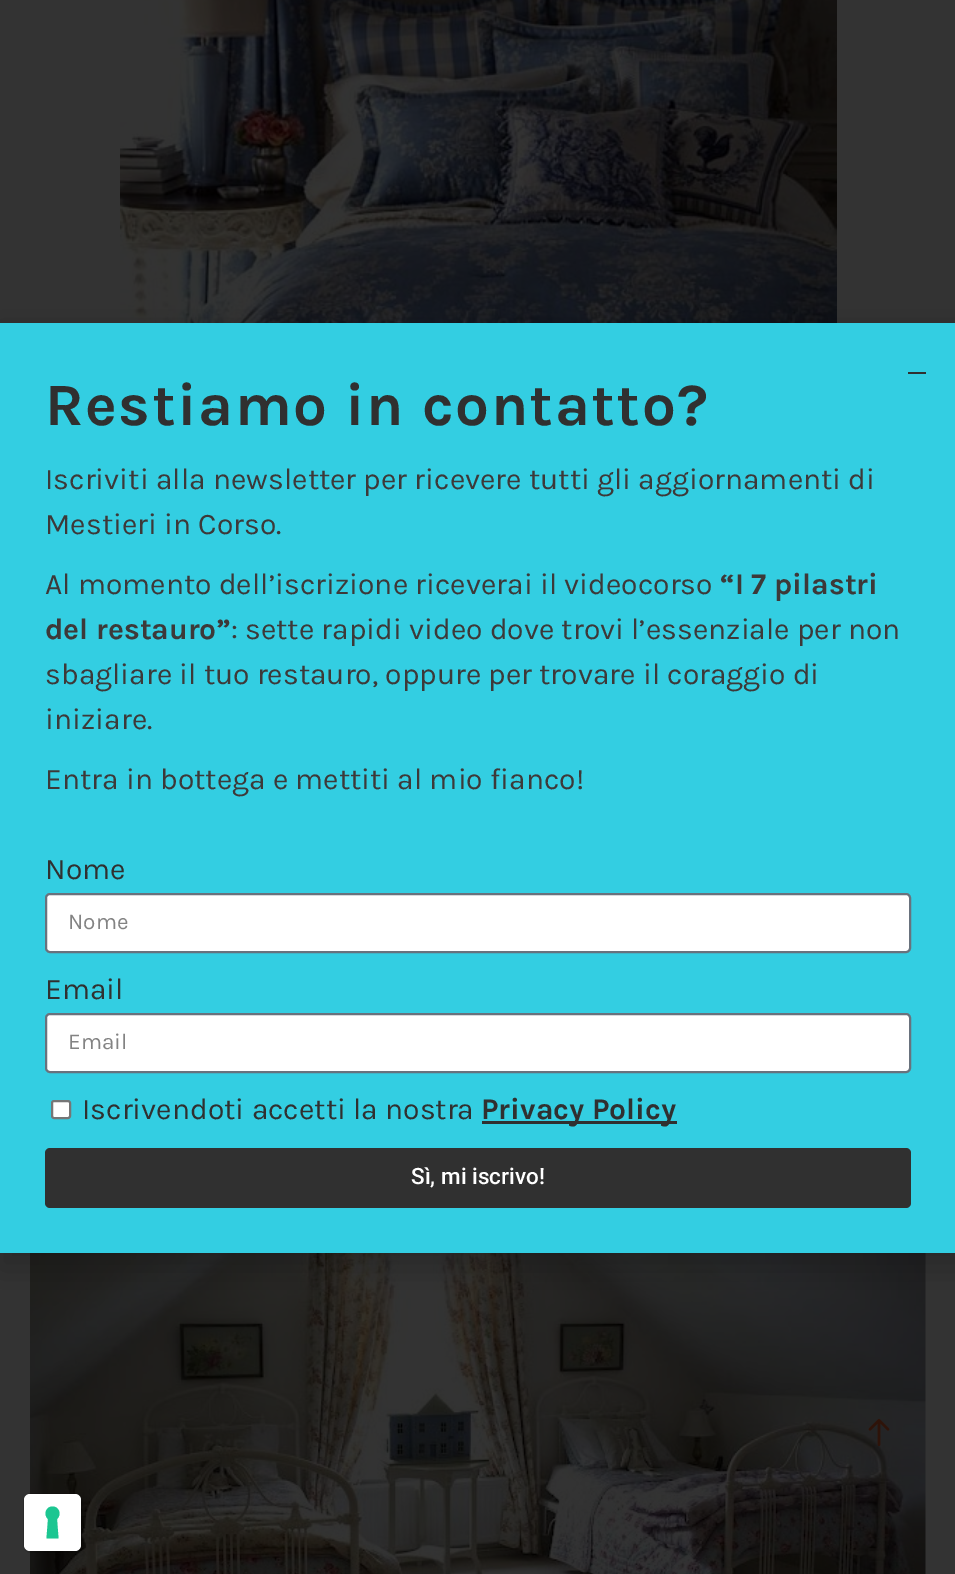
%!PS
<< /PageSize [955 1574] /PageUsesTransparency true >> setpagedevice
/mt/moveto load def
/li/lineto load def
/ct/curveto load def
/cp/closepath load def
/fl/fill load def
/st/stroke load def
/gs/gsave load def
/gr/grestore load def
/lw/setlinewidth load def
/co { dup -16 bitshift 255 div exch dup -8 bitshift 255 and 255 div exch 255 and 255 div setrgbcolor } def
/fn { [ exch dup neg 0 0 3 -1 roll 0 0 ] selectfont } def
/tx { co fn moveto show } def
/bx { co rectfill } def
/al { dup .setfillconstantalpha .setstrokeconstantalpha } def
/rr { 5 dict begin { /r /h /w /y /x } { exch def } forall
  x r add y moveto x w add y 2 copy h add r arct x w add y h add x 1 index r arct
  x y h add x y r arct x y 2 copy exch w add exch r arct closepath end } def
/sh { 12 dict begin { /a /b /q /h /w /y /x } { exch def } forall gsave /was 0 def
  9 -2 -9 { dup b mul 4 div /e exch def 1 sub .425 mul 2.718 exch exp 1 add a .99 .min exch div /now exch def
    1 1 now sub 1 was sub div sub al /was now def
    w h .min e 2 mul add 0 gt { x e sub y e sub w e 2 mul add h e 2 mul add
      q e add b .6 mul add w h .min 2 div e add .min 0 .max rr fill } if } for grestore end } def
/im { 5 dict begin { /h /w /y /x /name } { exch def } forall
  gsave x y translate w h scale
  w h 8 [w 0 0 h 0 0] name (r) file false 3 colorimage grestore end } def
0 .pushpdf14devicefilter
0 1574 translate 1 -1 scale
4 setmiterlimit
0 0 955 1574 16#333333 bx
(media/1.raw) 120 0 717 323 im
(media/2.raw) 30 1253 896 321 im
(media/3.raw) 868 1418 22 28 im
16#000000 co
-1 330 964 939 0 17 .2 sh
0 323 955 930 16#33CEE2 bx
908 372 18 2 16#303030 bx
16#FFFFFF co
46 894 864 58 4 rr gs fl gr
16#69727D co
2 lw
st
16#FFFFFF co
46 1014 864 58 4 rr gs fl gr
16#69727D co
st
16#FFFFFF co
52 1101 18 17 2 rr gs fl gr
16#767676 co
st
482 1121 195 3 16#303030 bx
45 1148 866 60 5 rr fl
0.15 al
16#000000 co
24 1494 58 58 7 rr st
1 al
16#FFFFFF co
24 1494 57 57 6 rr fl
16#1CC691 co
52.5 1506.5 mt 59 1506.5 62 1514.5 57 1519 ct 58.5 1538.5 li 46.5 1538.5 li 48 1519 li 43 1514.5 46 1506.5 52.5 1506.5 ct cp eofill
/Karla-Bold 60 fn
16#303030 co
45 425 mt 1.5 0 (Restiamo in contatto?) ashow
(Iscriviti alla newsletter per ricevere tutti gli aggiornamenti di) 45 489 /Karla-Regular 30 16#3D3939 tx
(Mestieri in Corso.) 45 534 /Karla-Regular 30 16#3D3939 tx
(Al momento dell’iscrizione riceverai il videocorso) 45 594 /Karla-Regular 30 16#3D3939 tx
(“I 7 pilastri) 720 594 /Karla-Bold 30 16#3D3939 tx
(del restauro”) 45 639 /Karla-Bold 30 16#3D3939 tx
(: sette rapidi video dove trovi l’essenziale per non) 231 639 /Karla-Regular 30 16#3D3939 tx
(sbagliare il tuo restauro, oppure per trovare il coraggio di) 45 684 /Karla-Regular 30 16#3D3939 tx
(iniziare.) 45 729 /Karla-Regular 30 16#3D3939 tx
(Entra in bottega e mettiti al mio fianco!) 45 789 /Karla-Regular 30 16#3D3939 tx
(Nome) 45 879 /Karla-Regular 30 16#303030 tx
(Nome) 68 929 /Karla-Regular 22.5 16#838383 tx
(Email) 45 999 /Karla-Regular 30 16#303030 tx
(Email) 68 1049 /Karla-Regular 22.5 16#838383 tx
(Iscrivendoti accetti la nostra) 82 1119 /Karla-Regular 30 16#303030 tx
(Privacy Policy) 481 1119 /Karla-Bold 30 16#303030 tx
(Sì, mi iscrivo!) 411 1184 /Roboto-Medium 22.5 16#FFFFFF tx
.poppdf14devicefilter showpage
